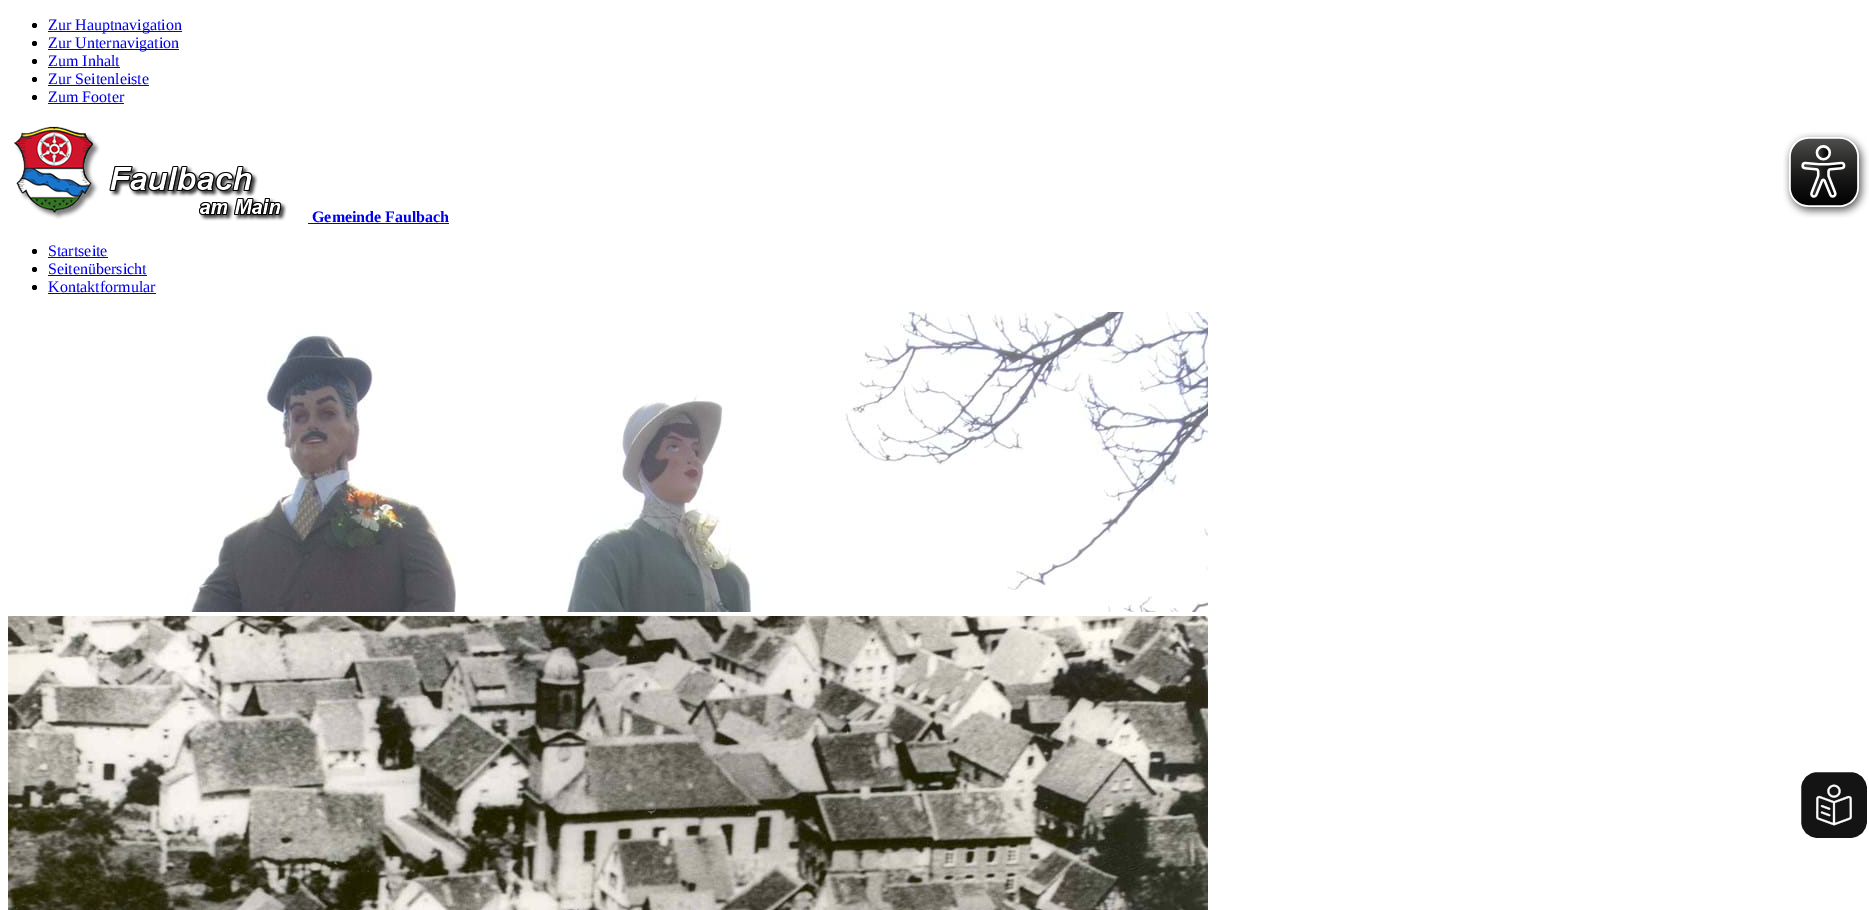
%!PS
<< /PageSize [1869 910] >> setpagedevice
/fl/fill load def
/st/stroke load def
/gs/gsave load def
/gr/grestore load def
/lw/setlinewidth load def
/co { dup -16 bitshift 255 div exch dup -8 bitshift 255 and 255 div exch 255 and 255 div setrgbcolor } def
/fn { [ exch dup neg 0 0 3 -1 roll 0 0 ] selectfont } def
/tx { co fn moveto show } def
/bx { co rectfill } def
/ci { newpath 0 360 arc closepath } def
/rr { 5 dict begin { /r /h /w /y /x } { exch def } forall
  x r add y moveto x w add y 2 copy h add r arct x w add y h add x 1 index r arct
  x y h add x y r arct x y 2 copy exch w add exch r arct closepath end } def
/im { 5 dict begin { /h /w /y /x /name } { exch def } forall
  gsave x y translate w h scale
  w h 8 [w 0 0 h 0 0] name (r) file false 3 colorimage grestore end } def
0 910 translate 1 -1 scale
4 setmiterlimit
0 0 1869 910 16#FFFFFF bx
16#000000 co
34.5 25.5 2.5 ci fl
48 31 134 1 16#0000EE bx
16#000000 co
34.5 43.5 2.5 ci fl
48 49 131 1 16#0000EE bx
16#000000 co
34.5 61.5 2.5 ci fl
48 67 72 1 16#0000EE bx
16#000000 co
34.5 79.5 2.5 ci fl
48 85 101 1 16#0000EE bx
16#000000 co
34.5 97.5 2.5 ci fl
48 103 76 1 16#0000EE bx
(media/1.raw) 14 126 273 95 im
308 223 141 1 16#0000EE bx
16#000000 co
34.5 251.5 2.5 ci fl
48 257 60 1 16#0000EE bx
16#000000 co
34.5 269.5 2.5 ci fl
48 275 99 1 16#0000EE bx
16#000000 co
34.5 287.5 2.5 ci fl
48 293 108 1 16#0000EE bx
(media/2.raw) 185 312 1023 300 im
(media/3.raw) 8 616 1200 294 im
16#151414 co
1800 771 68 68 17 rr gs fl gr
16#FFFFFF co
2 lw
st
(media/4.raw) 1816 784 36 42 im
(media/5.raw) 1783 132 86 86 im
(Zur Hauptnavigation) 48 30 /LiberationSerif-Regular 16 16#0000EE tx
(Zur Unternavigation) 48 48 /LiberationSerif-Regular 16 16#0000EE tx
(Zum Inhalt) 48 66 /LiberationSerif-Regular 16 16#0000EE tx
(Zur Seitenleiste) 48 84 /LiberationSerif-Regular 16 16#0000EE tx
(Zum Footer) 48 102 /LiberationSerif-Regular 16 16#0000EE tx
(Gemeinde Faulbach) 312 222 /LiberationSerif-Bold 16 16#0000EE tx
(Startseite) 48 256 /LiberationSerif-Regular 16 16#0000EE tx
(Seitenübersicht) 48 274 /LiberationSerif-Regular 16 16#0000EE tx
(Kontaktformular) 48 292 /LiberationSerif-Regular 16 16#0000EE tx
showpage
